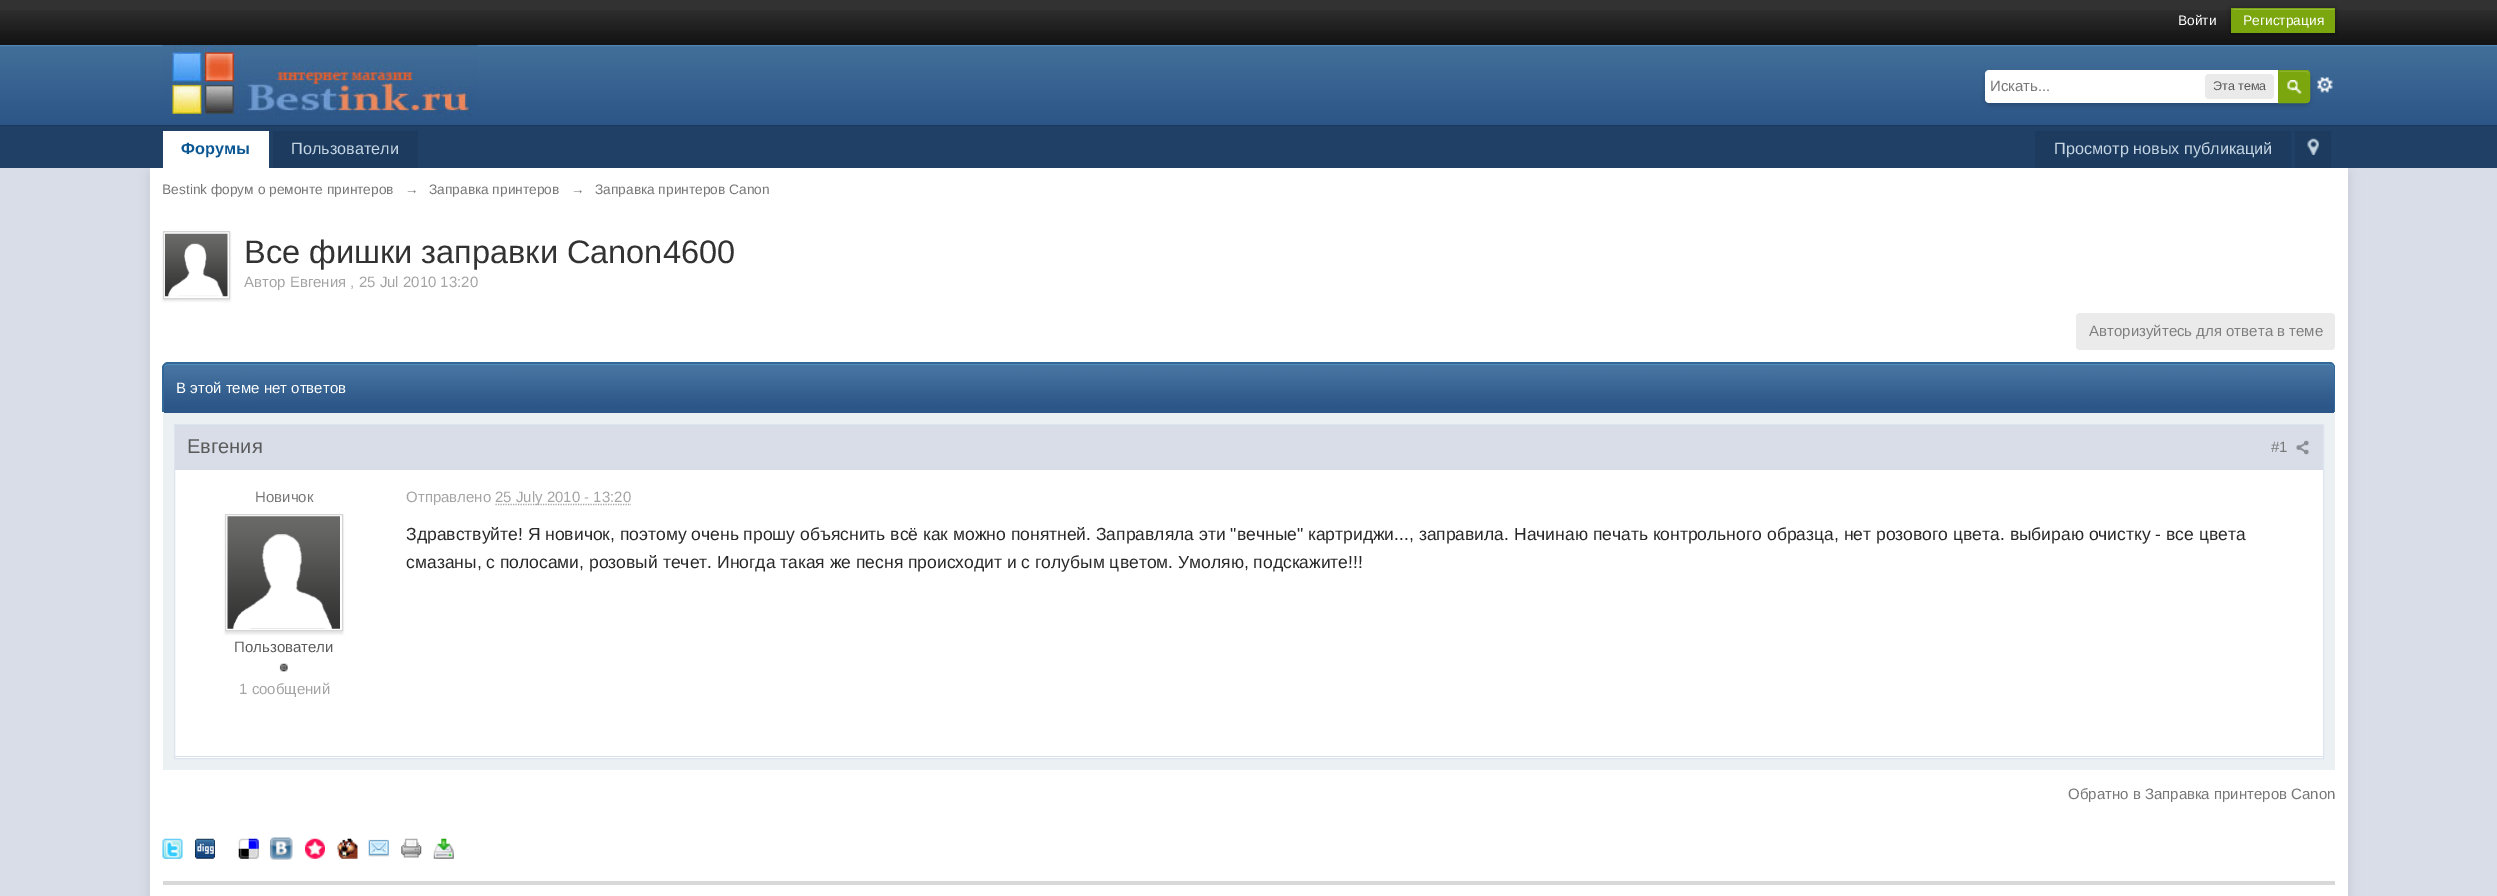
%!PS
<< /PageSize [2497 896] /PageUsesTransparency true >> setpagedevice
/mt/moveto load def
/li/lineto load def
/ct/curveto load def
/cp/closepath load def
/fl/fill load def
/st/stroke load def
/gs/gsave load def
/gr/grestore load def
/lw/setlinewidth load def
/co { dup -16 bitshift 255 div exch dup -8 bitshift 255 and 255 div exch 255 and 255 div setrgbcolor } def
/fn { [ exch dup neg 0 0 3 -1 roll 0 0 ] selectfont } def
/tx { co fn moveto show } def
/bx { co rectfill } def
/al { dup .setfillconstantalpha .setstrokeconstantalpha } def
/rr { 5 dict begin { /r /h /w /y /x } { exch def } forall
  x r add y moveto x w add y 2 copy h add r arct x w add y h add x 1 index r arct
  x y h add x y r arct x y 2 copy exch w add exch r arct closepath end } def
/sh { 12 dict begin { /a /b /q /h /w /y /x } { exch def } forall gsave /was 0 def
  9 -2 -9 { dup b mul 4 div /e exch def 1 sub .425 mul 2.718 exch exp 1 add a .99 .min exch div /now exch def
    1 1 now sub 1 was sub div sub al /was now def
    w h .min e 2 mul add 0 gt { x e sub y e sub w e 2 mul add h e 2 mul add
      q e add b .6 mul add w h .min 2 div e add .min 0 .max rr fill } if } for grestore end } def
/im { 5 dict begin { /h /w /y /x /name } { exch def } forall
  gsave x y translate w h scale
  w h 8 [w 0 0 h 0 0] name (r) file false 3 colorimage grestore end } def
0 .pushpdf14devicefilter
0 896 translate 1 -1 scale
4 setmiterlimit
0 0 2497 896 16#D8DDE8 bx
0 0 2497 10 16#323232 bx
(media/1.raw) 0 10 2497 35 im
16#000000 co
2231 9 104 25 0 2.5 .4 sh
2231 8 104 25 16#7BA60D bx
2233 9 101 1 16#95B83D bx
(media/2.raw) 0 45 2497 80 im
0 125 2497 1 16#1B3759 bx
(media/3.raw) 162 45 316 71 im
(media/5.raw) 2317 77 16 16 im
16#000000 co
1985 73 325 32 5 2.5 .2 sh
16#FFFFFF co
1989 70 mt 2305 70 li 2308 70 2310 72 2310 75 ct 2310 98 li 2310 101 2308 103 2305 103 ct 1989 103 li 1987 103 1985 101 1985 99 ct 1985 74 li 1985 72 1987 70 1989 70 ct cp fl
16#EAEAEA co
2205 74 69 25 4 rr fl
16#7BA60D co
2278 70 mt 2306 70 li 2308 70 2310 72 2310 74 ct 2310 99 li 2310 101 2308 103 2306 103 ct 2278 103 li cp fl
(media/4.raw) 2287 80 15 14 im
16#95B83D co
2279 72 mt 2306 72 li 2308 72 2309 74 2309 75 ct 2309 73.5 li 2309 72 2308 71 2306.5 71 ct 2279 71 li cp fl
16#7BA60D co
2278.5 70.5 mt 2306 70.5 li 2308 70.5 2309.5 72 2309.5 74 ct 2309.5 99 li 2309.5 101 2308 102.5 2306 102.5 ct 2278.5 102.5 li cp st
0 126 2497 42 16#204066 bx
16#000000 co
150 174 2198 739 0 5.5 .1 sh
163 131 106 37 16#FFFFFF bx
273 131 145 37 16#1C3B5F bx
2035 131 256 37 16#1C3B5F bx
2295 131 36 37 16#1C3B5F bx
(media/6.raw) 2307 138 12 17 im
150 168 2198 728 16#FFFFFF bx
16#000000 co
163 234 67 67 0 1 .1 sh
164 233 65 65 16#FFFFFF bx
16#D5D5D5 co
163.5 231.5 66 67 rectstroke
(media/7.raw) 165 233 63 64 im
16#EBEBEB co
2076 313 259 37 4 rr fl
16#2C5687 co
168 364 mt 2330 364 li 2332 364 2334 366 2334 368 ct 2334 413 li 164 413 li 164 368 li 164 366 166 364 168 364 ct cp fl
(media/8.raw) 162 363 2173 45 im
16#528CBC co
168 365 mt 2330 365 li 2332 365 2334 367 2334 369 ct 2334 368 li 2334 366 2332 364 2330 364 ct 168 364 li 166 364 164 366 164 368 ct 164 369 li 164 367 165 365 168 365 ct cp fl
16#316897 co
168 362 mt 2330 362 li 2333 362 2335 365 2335 368 ct 2335 412 li 162 412 li 162 368 li 162 365 165 362 168 362 ct cp 168 364 mt 2330 364 li 2332 364 2334 365 2334 368 ct 2334 412 li 164 412 li 164 368 li 164 365 165 364 168 364 ct cp eofill
163 413 2172 357 16#EBF0F3 bx
175 470 2148 288 16#FFFFFF bx
16#DBE4EF co
174.5 424.5 2149 334 rectstroke
175 756 2148 1 16#D6E2EB bx
175 425 2148 45 16#D8DDE8 bx
(media/9.raw) 2296 440 13 15 im
16#000000 co
225 516 118 118 0 1 .1 sh
16#FFFFFF co
225.5 514.5 mt 342.5 514.5 li 342.5 630.5 li 225.5 630.5 li cp gs fl gr
16#D5D5D5 co
st
(media/10.raw) 227 516 113 113 im
(media/11.raw) 279 663 9 9 im
16#A4A4A4 co
1.2 lw
[1.25 1.25] 0 setdash
495.5 504.5 mt 631 504.5 li st
(media/12.raw) 162 838 21 21 im
(media/13.raw) 195 838 20 21 im
(media/14.raw) 238 838 21 21 im
(media/15.raw) 270 837 23 23 im
(media/16.raw) 305 838 20 21 im
(media/17.raw) 337 838 21 21 im
(media/18.raw) 368 839 21 18 im
(media/19.raw) 401 838 21 20 im
(media/20.raw) 433 838 21 21 im
163 881 2172 4 16#D8D8D8 bx
(Войти) 2178 25 /LiberationSans-Regular 13.75 16#FFFFFF tx
(Регистрация) 2243 25 /LiberationSans-Regular 13.75 16#FFFFFF tx
(Искать...) 1990 91 /LiberationSans-Regular 15 16#777777 tx
(Эта тема) 2213 90 /LiberationSans-Regular 12.5 16#5A5A5A tx
(Форумы) 181 154 /LiberationSans-Bold 16.25 16#0B5794 tx
(Пользователи) 291 154 /LiberationSans-Regular 16.25 16#C5D5E2 tx
(Просмотр новых публикаций) 2054 154 /LiberationSans-Regular 16.25 16#C5D5E2 tx
(Bestink форум о ремонте принтеров) 162 194 /LiberationSans-Regular 13.75 16#777777 tx
(→) 405 194 /LiberationSans-Regular 13.75 16#777777 tx
(Заправка принтеров) 429 194 /LiberationSans-Regular 13.75 16#777777 tx
(→) 571 194 /LiberationSans-Regular 13.75 16#777777 tx
(Заправка принтеров Canon) 595 194 /LiberationSans-Regular 13.75 16#777777 tx
(Все фишки заправки Canon4600) 244 263 /LiberationSans-Regular 32.5 16#323232 tx
(Автор Евгения , 25 Jul 2010 13:20) 244 287 /LiberationSans-Regular 15 16#A4A4A4 tx
(Авторизуйтесь для ответа в теме) 2089 336 /LiberationSans-Regular 15 16#7F7F7F tx
(В этой теме нет ответов) 176 393 /LiberationSans-Regular 15 16#FFFFFF tx
(Евгения) 187 453 /LiberationSans-Regular 20 16#5A5A5A tx
(#1) 2271 452 /LiberationSans-Regular 15 16#777777 tx
(Новичок) 255 502 /LiberationSans-Regular 15 16#777777 tx
(Пользователи) 234 652 /LiberationSans-Regular 15 16#5A5A5A tx
(1 сообщений) 239 694 /LiberationSans-Regular 15 16#A4A4A4 tx
(Отправлено) 406 502 /LiberationSans-Regular 15 16#A4A4A4 tx
(25 July 2010 - 13:20) 495 502 /LiberationSans-Regular 15 16#A4A4A4 tx
(Здравствуйте! Я новичок, поэтому очень прошу объяснить всё как можно понятней. Заправляла эти "вечные" картриджи..., заправила. Начинаю печать контрольного образца, нет розового цвета. выбираю очистку - все цвета) 406 540 /LiberationSans-Regular 17.5 16#282828 tx
(смазаны, с полосами, розовый течет. Иногда такая же песня происходит и с голубым цветом. Умоляю, подскажите!!!) 406 568 /LiberationSans-Regular 17.5 16#282828 tx
(Обратно в Заправка принтеров Canon) 2068 799 /LiberationSans-Regular 15 16#777777 tx
.poppdf14devicefilter showpage
